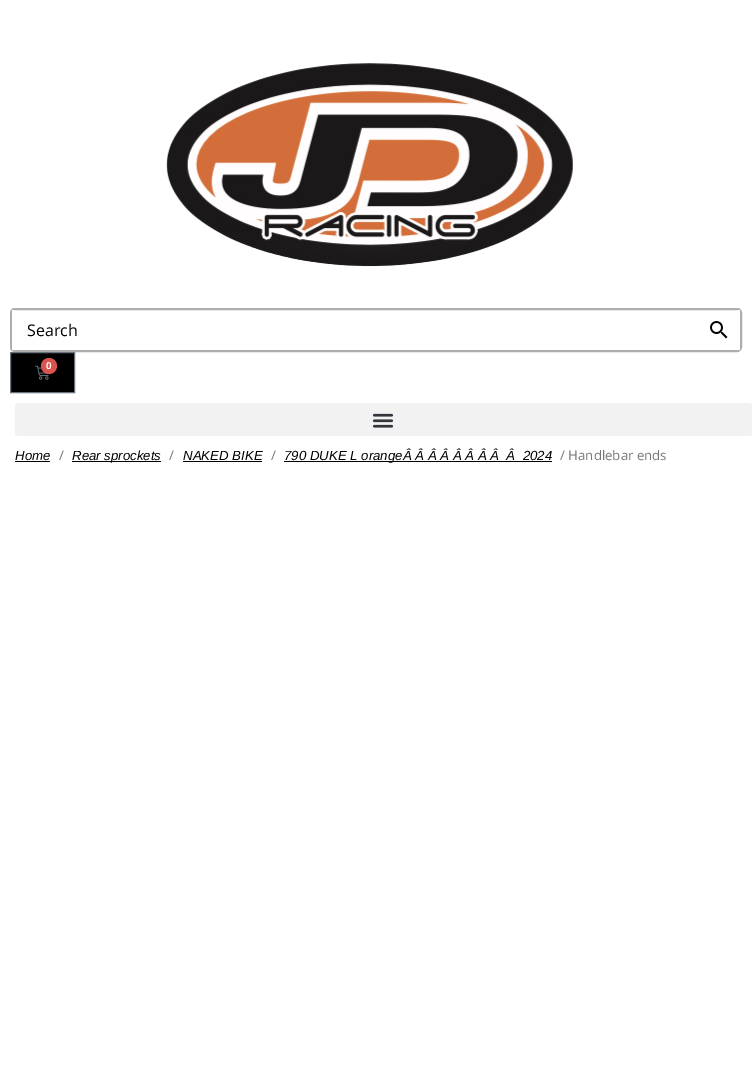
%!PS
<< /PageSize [752 1077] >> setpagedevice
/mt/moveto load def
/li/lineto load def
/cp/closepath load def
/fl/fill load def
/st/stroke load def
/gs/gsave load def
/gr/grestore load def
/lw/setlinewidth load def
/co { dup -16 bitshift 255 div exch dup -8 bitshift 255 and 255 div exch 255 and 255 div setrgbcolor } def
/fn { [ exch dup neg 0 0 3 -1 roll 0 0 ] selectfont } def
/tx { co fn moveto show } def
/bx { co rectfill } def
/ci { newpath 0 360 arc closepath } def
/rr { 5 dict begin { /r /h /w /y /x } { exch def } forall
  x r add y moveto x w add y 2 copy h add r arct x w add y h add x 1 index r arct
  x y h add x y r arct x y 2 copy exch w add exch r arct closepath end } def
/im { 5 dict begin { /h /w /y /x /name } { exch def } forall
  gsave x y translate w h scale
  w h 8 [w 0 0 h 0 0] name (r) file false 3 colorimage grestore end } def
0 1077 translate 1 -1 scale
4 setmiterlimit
0 0 752 1077 16#FFFFFF bx
(media/1.raw) 166 63 408 204 im
16#ADADAD co
2 lw
11 309 730 42 4 rr st
12 310 3 40 16#FFFFFF bx
737 310 3 40 16#FFFFFF bx
(media/2.raw) 710 321 18 18 im
16#000000 co
10.5 352.5 mt 74.5 352.5 li 74.5 392.5 li 10.5 392.5 li cp gs fl gr
16#69727D co
1 lw
st
(media/3.raw) 35 365 14 15 im
16#D9534F co
49 366 8 ci fl
16#F2F2F2 co
15 403 737 33 3 rr fl
(media/4.raw) 372 413 22 15 im
15 461 35 1 16#000000 bx
72 461 89 1 16#000000 bx
183 461 79 1 16#000000 bx
284 461 268 1 16#000000 bx
(Search) 27 336 /OpenSans-Regular 16 16#000000 tx
(0) 46 369 /LiberationSans-Bold 10 16#FFFFFF tx
(Home) 15 460 /LiberationSans-Italic 13.25 16#000000 tx
(/) 59 460 /OpenSans-Regular 13.25 16#767676 tx
(Rear sprockets) 72 460 /LiberationSans-Italic 13.25 16#000000 tx
(/) 169 460 /OpenSans-Regular 13.25 16#767676 tx
(NAKED BIKE) 183 460 /LiberationSans-Italic 13.25 16#000000 tx
(/) 271 460 /OpenSans-Regular 13.25 16#767676 tx
(790 DUKE L orangeÂ Â Â Â Â Â Â Â  Â  2024) 284 460 /LiberationSans-Italic 13.25 16#000000 tx
(/ Handlebar ends) 560 460 /OpenSans-Regular 13.25 16#767676 tx
showpage
